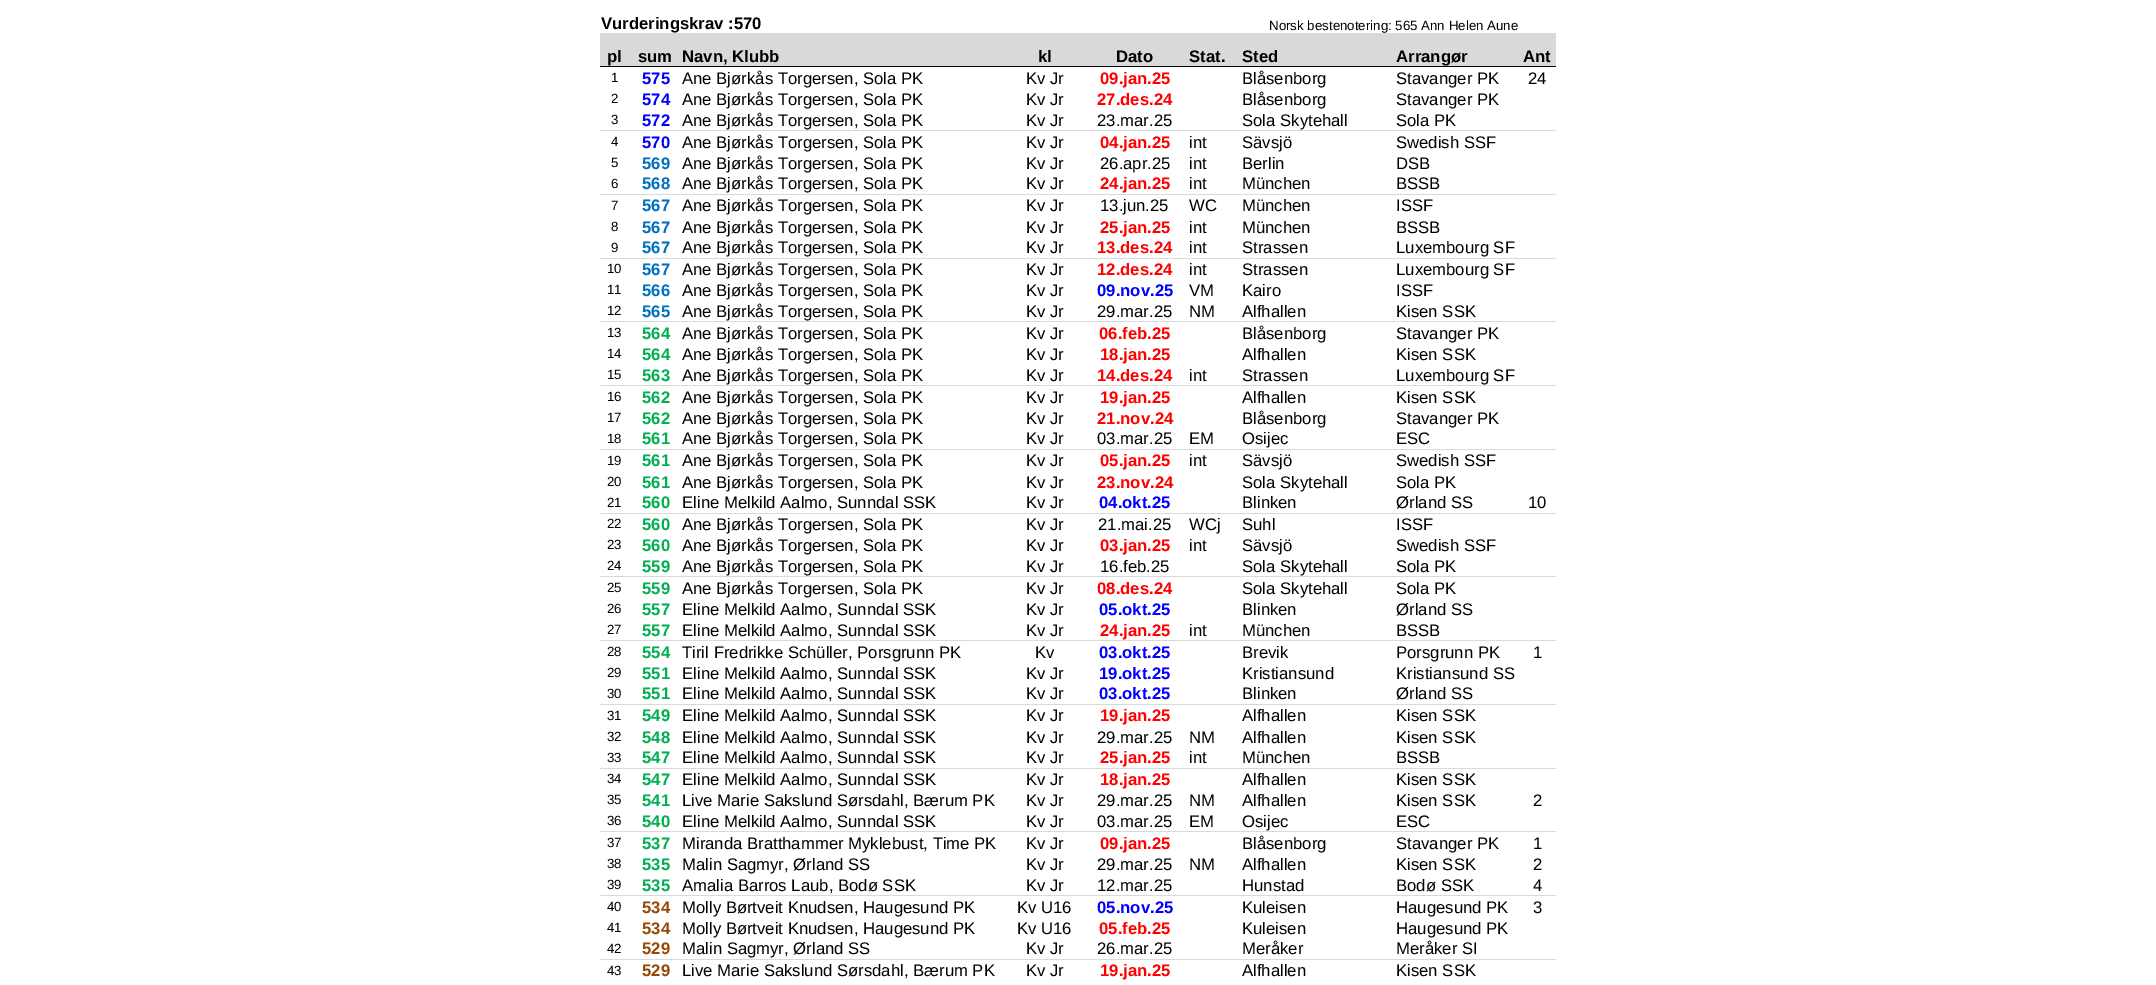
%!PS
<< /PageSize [2156 985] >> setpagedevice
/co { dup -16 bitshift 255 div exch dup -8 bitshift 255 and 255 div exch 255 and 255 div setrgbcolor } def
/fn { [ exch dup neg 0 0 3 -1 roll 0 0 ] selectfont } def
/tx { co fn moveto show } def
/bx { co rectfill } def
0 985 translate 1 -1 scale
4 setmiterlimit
0 0 2156 985 16#FFFFFF bx
600 33 956 33 16#D9D9D9 bx
600 66 956 1 16#000000 bx
600 130 956 1 16#D9D9D9 bx
600 194 956 1 16#D9D9D9 bx
600 258 956 1 16#D9D9D9 bx
600 321 956 1 16#D9D9D9 bx
600 385 956 1 16#D9D9D9 bx
600 449 956 1 16#D9D9D9 bx
600 513 956 1 16#D9D9D9 bx
600 576 956 1 16#D9D9D9 bx
600 640 956 1 16#D9D9D9 bx
600 704 956 1 16#D9D9D9 bx
600 768 956 1 16#D9D9D9 bx
600 831 956 1 16#D9D9D9 bx
600 895 956 1 16#D9D9D9 bx
600 959 956 1 16#D9D9D9 bx
(Vurderingskrav :570) 601 29 /LiberationSans-Bold 16.7 16#000000 tx
(Norsk bestenotering: 565 Ann Helen Aune) 1269 30 /LiberationSans-Regular 13.3 16#000000 tx
(pl) 607 62 /LiberationSans-Bold 16.7 16#000000 tx
(sum) 638 62 /LiberationSans-Bold 16.7 16#000000 tx
(Navn, Klubb) 682 62 /LiberationSans-Bold 16.7 16#000000 tx
(kl) 1038 62 /LiberationSans-Bold 16.7 16#000000 tx
(Dato) 1116 62 /LiberationSans-Bold 16.7 16#000000 tx
(Stat.) 1189 62 /LiberationSans-Bold 16.7 16#000000 tx
(Sted) 1242 62 /LiberationSans-Bold 16.7 16#000000 tx
(Arrangør) 1396 62 /LiberationSans-Bold 16.7 16#000000 tx
(Ant) 1523 62 /LiberationSans-Bold 16.7 16#000000 tx
(1) 611 82 /LiberationSans-Regular 13.3 16#000000 tx
(575) 642 84 /LiberationSans-Bold 16.7 16#0000FF tx
(Ane Bjørkås Torgersen, Sola PK) 682 84 /LiberationSans-Regular 16.7 16#000000 tx
(Kv Jr) 1026 84 /LiberationSans-Regular 16.7 16#000000 tx
(09.jan.25) 1100 84 /LiberationSans-Bold 16.7 16#FF0000 tx
(Blåsenborg) 1242 84 /LiberationSans-Regular 16.7 16#000000 tx
(Stavanger PK) 1396 84 /LiberationSans-Regular 16.7 16#000000 tx
(24) 1528 84 /LiberationSans-Regular 16.7 16#000000 tx
(2) 611 103 /LiberationSans-Regular 13.3 16#000000 tx
(574) 642 105 /LiberationSans-Bold 16.7 16#0000FF tx
(Ane Bjørkås Torgersen, Sola PK) 682 105 /LiberationSans-Regular 16.7 16#000000 tx
(Kv Jr) 1026 105 /LiberationSans-Regular 16.7 16#000000 tx
(27.des.24) 1097 105 /LiberationSans-Bold 16.7 16#FF0000 tx
(Blåsenborg) 1242 105 /LiberationSans-Regular 16.7 16#000000 tx
(Stavanger PK) 1396 105 /LiberationSans-Regular 16.7 16#000000 tx
(3) 611 124 /LiberationSans-Regular 13.3 16#000000 tx
(572) 642 126 /LiberationSans-Bold 16.7 16#0000FF tx
(Ane Bjørkås Torgersen, Sola PK) 682 126 /LiberationSans-Regular 16.7 16#000000 tx
(Kv Jr) 1026 126 /LiberationSans-Regular 16.7 16#000000 tx
(23.mar.25) 1097 126 /LiberationSans-Regular 16.7 16#000000 tx
(Sola Skytehall) 1242 126 /LiberationSans-Regular 16.7 16#000000 tx
(Sola PK) 1396 126 /LiberationSans-Regular 16.7 16#000000 tx
(4) 611 146 /LiberationSans-Regular 13.3 16#000000 tx
(570) 642 148 /LiberationSans-Bold 16.7 16#0000FF tx
(Ane Bjørkås Torgersen, Sola PK) 682 148 /LiberationSans-Regular 16.7 16#000000 tx
(Kv Jr) 1026 148 /LiberationSans-Regular 16.7 16#000000 tx
(04.jan.25) 1100 148 /LiberationSans-Bold 16.7 16#FF0000 tx
(int) 1189 148 /LiberationSans-Regular 16.7 16#000000 tx
(Sävsjö) 1242 148 /LiberationSans-Regular 16.7 16#000000 tx
(Swedish SSF) 1396 148 /LiberationSans-Regular 16.7 16#000000 tx
(5) 611 167 /LiberationSans-Regular 13.3 16#000000 tx
(569) 642 169 /LiberationSans-Bold 16.7 16#0070C0 tx
(Ane Bjørkås Torgersen, Sola PK) 682 169 /LiberationSans-Regular 16.7 16#000000 tx
(Kv Jr) 1026 169 /LiberationSans-Regular 16.7 16#000000 tx
(26.apr.25) 1100 169 /LiberationSans-Regular 16.7 16#000000 tx
(int) 1189 169 /LiberationSans-Regular 16.7 16#000000 tx
(Berlin) 1242 169 /LiberationSans-Regular 16.7 16#000000 tx
(DSB) 1396 169 /LiberationSans-Regular 16.7 16#000000 tx
(6) 611 188 /LiberationSans-Regular 13.3 16#000000 tx
(568) 642 189 /LiberationSans-Bold 16.7 16#0070C0 tx
(Ane Bjørkås Torgersen, Sola PK) 682 189 /LiberationSans-Regular 16.7 16#000000 tx
(Kv Jr) 1026 189 /LiberationSans-Regular 16.7 16#000000 tx
(24.jan.25) 1100 189 /LiberationSans-Bold 16.7 16#FF0000 tx
(int) 1189 189 /LiberationSans-Regular 16.7 16#000000 tx
(München) 1242 189 /LiberationSans-Regular 16.7 16#000000 tx
(BSSB) 1396 189 /LiberationSans-Regular 16.7 16#000000 tx
(7) 611 210 /LiberationSans-Regular 13.3 16#000000 tx
(567) 642 211 /LiberationSans-Bold 16.7 16#0070C0 tx
(Ane Bjørkås Torgersen, Sola PK) 682 211 /LiberationSans-Regular 16.7 16#000000 tx
(Kv Jr) 1026 211 /LiberationSans-Regular 16.7 16#000000 tx
(13.jun.25) 1100 211 /LiberationSans-Regular 16.7 16#000000 tx
(WC) 1189 211 /LiberationSans-Regular 16.7 16#000000 tx
(München) 1242 211 /LiberationSans-Regular 16.7 16#000000 tx
(ISSF) 1396 211 /LiberationSans-Regular 16.7 16#000000 tx
(8) 611 231 /LiberationSans-Regular 13.3 16#000000 tx
(567) 642 233 /LiberationSans-Bold 16.7 16#0070C0 tx
(Ane Bjørkås Torgersen, Sola PK) 682 233 /LiberationSans-Regular 16.7 16#000000 tx
(Kv Jr) 1026 233 /LiberationSans-Regular 16.7 16#000000 tx
(25.jan.25) 1100 233 /LiberationSans-Bold 16.7 16#FF0000 tx
(int) 1189 233 /LiberationSans-Regular 16.7 16#000000 tx
(München) 1242 233 /LiberationSans-Regular 16.7 16#000000 tx
(BSSB) 1396 233 /LiberationSans-Regular 16.7 16#000000 tx
(9) 611 252 /LiberationSans-Regular 13.3 16#000000 tx
(567) 642 253 /LiberationSans-Bold 16.7 16#0070C0 tx
(Ane Bjørkås Torgersen, Sola PK) 682 253 /LiberationSans-Regular 16.7 16#000000 tx
(Kv Jr) 1026 253 /LiberationSans-Regular 16.7 16#000000 tx
(13.des.24) 1097 253 /LiberationSans-Bold 16.7 16#FF0000 tx
(int) 1189 253 /LiberationSans-Regular 16.7 16#000000 tx
(Strassen) 1242 253 /LiberationSans-Regular 16.7 16#000000 tx
(Luxembourg SF) 1396 253 /LiberationSans-Regular 16.7 16#000000 tx
(10) 607 273 /LiberationSans-Regular 13.3 16#000000 tx
(567) 642 275 /LiberationSans-Bold 16.7 16#0070C0 tx
(Ane Bjørkås Torgersen, Sola PK) 682 275 /LiberationSans-Regular 16.7 16#000000 tx
(Kv Jr) 1026 275 /LiberationSans-Regular 16.7 16#000000 tx
(12.des.24) 1097 275 /LiberationSans-Bold 16.7 16#FF0000 tx
(int) 1189 275 /LiberationSans-Regular 16.7 16#000000 tx
(Strassen) 1242 275 /LiberationSans-Regular 16.7 16#000000 tx
(Luxembourg SF) 1396 275 /LiberationSans-Regular 16.7 16#000000 tx
(11) 607 294 /LiberationSans-Regular 13.3 16#000000 tx
(566) 642 296 /LiberationSans-Bold 16.7 16#0070C0 tx
(Ane Bjørkås Torgersen, Sola PK) 682 296 /LiberationSans-Regular 16.7 16#000000 tx
(Kv Jr) 1026 296 /LiberationSans-Regular 16.7 16#000000 tx
(09.nov.25) 1097 296 /LiberationSans-Bold 16.7 16#0000FF tx
(VM) 1189 296 /LiberationSans-Regular 16.7 16#000000 tx
(Kairo) 1242 296 /LiberationSans-Regular 16.7 16#000000 tx
(ISSF) 1396 296 /LiberationSans-Regular 16.7 16#000000 tx
(12) 607 315 /LiberationSans-Regular 13.3 16#000000 tx
(565) 642 317 /LiberationSans-Bold 16.7 16#0070C0 tx
(Ane Bjørkås Torgersen, Sola PK) 682 317 /LiberationSans-Regular 16.7 16#000000 tx
(Kv Jr) 1026 317 /LiberationSans-Regular 16.7 16#000000 tx
(29.mar.25) 1097 317 /LiberationSans-Regular 16.7 16#000000 tx
(NM) 1189 317 /LiberationSans-Regular 16.7 16#000000 tx
(Alfhallen) 1242 317 /LiberationSans-Regular 16.7 16#000000 tx
(Kisen SSK) 1396 317 /LiberationSans-Regular 16.7 16#000000 tx
(13) 607 337 /LiberationSans-Regular 13.3 16#000000 tx
(564) 642 339 /LiberationSans-Bold 16.7 16#00B050 tx
(Ane Bjørkås Torgersen, Sola PK) 682 339 /LiberationSans-Regular 16.7 16#000000 tx
(Kv Jr) 1026 339 /LiberationSans-Regular 16.7 16#000000 tx
(06.feb.25) 1099 339 /LiberationSans-Bold 16.7 16#FF0000 tx
(Blåsenborg) 1242 339 /LiberationSans-Regular 16.7 16#000000 tx
(Stavanger PK) 1396 339 /LiberationSans-Regular 16.7 16#000000 tx
(14) 607 358 /LiberationSans-Regular 13.3 16#000000 tx
(564) 642 360 /LiberationSans-Bold 16.7 16#00B050 tx
(Ane Bjørkås Torgersen, Sola PK) 682 360 /LiberationSans-Regular 16.7 16#000000 tx
(Kv Jr) 1026 360 /LiberationSans-Regular 16.7 16#000000 tx
(18.jan.25) 1100 360 /LiberationSans-Bold 16.7 16#FF0000 tx
(Alfhallen) 1242 360 /LiberationSans-Regular 16.7 16#000000 tx
(Kisen SSK) 1396 360 /LiberationSans-Regular 16.7 16#000000 tx
(15) 607 379 /LiberationSans-Regular 13.3 16#000000 tx
(563) 642 381 /LiberationSans-Bold 16.7 16#00B050 tx
(Ane Bjørkås Torgersen, Sola PK) 682 381 /LiberationSans-Regular 16.7 16#000000 tx
(Kv Jr) 1026 381 /LiberationSans-Regular 16.7 16#000000 tx
(14.des.24) 1097 381 /LiberationSans-Bold 16.7 16#FF0000 tx
(int) 1189 381 /LiberationSans-Regular 16.7 16#000000 tx
(Strassen) 1242 381 /LiberationSans-Regular 16.7 16#000000 tx
(Luxembourg SF) 1396 381 /LiberationSans-Regular 16.7 16#000000 tx
(16) 607 401 /LiberationSans-Regular 13.3 16#000000 tx
(562) 642 403 /LiberationSans-Bold 16.7 16#00B050 tx
(Ane Bjørkås Torgersen, Sola PK) 682 403 /LiberationSans-Regular 16.7 16#000000 tx
(Kv Jr) 1026 403 /LiberationSans-Regular 16.7 16#000000 tx
(19.jan.25) 1100 403 /LiberationSans-Bold 16.7 16#FF0000 tx
(Alfhallen) 1242 403 /LiberationSans-Regular 16.7 16#000000 tx
(Kisen SSK) 1396 403 /LiberationSans-Regular 16.7 16#000000 tx
(17) 607 422 /LiberationSans-Regular 13.3 16#000000 tx
(562) 642 424 /LiberationSans-Bold 16.7 16#00B050 tx
(Ane Bjørkås Torgersen, Sola PK) 682 424 /LiberationSans-Regular 16.7 16#000000 tx
(Kv Jr) 1026 424 /LiberationSans-Regular 16.7 16#000000 tx
(21.nov.24) 1097 424 /LiberationSans-Bold 16.7 16#FF0000 tx
(Blåsenborg) 1242 424 /LiberationSans-Regular 16.7 16#000000 tx
(Stavanger PK) 1396 424 /LiberationSans-Regular 16.7 16#000000 tx
(18) 607 443 /LiberationSans-Regular 13.3 16#000000 tx
(561) 642 444 /LiberationSans-Bold 16.7 16#00B050 tx
(Ane Bjørkås Torgersen, Sola PK) 682 444 /LiberationSans-Regular 16.7 16#000000 tx
(Kv Jr) 1026 444 /LiberationSans-Regular 16.7 16#000000 tx
(03.mar.25) 1097 444 /LiberationSans-Regular 16.7 16#000000 tx
(EM) 1189 444 /LiberationSans-Regular 16.7 16#000000 tx
(Osijec) 1242 444 /LiberationSans-Regular 16.7 16#000000 tx
(ESC) 1396 444 /LiberationSans-Regular 16.7 16#000000 tx
(19) 607 465 /LiberationSans-Regular 13.3 16#000000 tx
(561) 642 466 /LiberationSans-Bold 16.7 16#00B050 tx
(Ane Bjørkås Torgersen, Sola PK) 682 466 /LiberationSans-Regular 16.7 16#000000 tx
(Kv Jr) 1026 466 /LiberationSans-Regular 16.7 16#000000 tx
(05.jan.25) 1100 466 /LiberationSans-Bold 16.7 16#FF0000 tx
(int) 1189 466 /LiberationSans-Regular 16.7 16#000000 tx
(Sävsjö) 1242 466 /LiberationSans-Regular 16.7 16#000000 tx
(Swedish SSF) 1396 466 /LiberationSans-Regular 16.7 16#000000 tx
(20) 607 486 /LiberationSans-Regular 13.3 16#000000 tx
(561) 642 488 /LiberationSans-Bold 16.7 16#00B050 tx
(Ane Bjørkås Torgersen, Sola PK) 682 488 /LiberationSans-Regular 16.7 16#000000 tx
(Kv Jr) 1026 488 /LiberationSans-Regular 16.7 16#000000 tx
(23.nov.24) 1097 488 /LiberationSans-Bold 16.7 16#FF0000 tx
(Sola Skytehall) 1242 488 /LiberationSans-Regular 16.7 16#000000 tx
(Sola PK) 1396 488 /LiberationSans-Regular 16.7 16#000000 tx
(21) 607 507 /LiberationSans-Regular 13.3 16#000000 tx
(560) 642 508 /LiberationSans-Bold 16.7 16#00B050 tx
(Eline Melkild Aalmo, Sunndal SSK) 682 508 /LiberationSans-Regular 16.7 16#000000 tx
(Kv Jr) 1026 508 /LiberationSans-Regular 16.7 16#000000 tx
(04.okt.25) 1099 508 /LiberationSans-Bold 16.7 16#0000FF tx
(Blinken) 1242 508 /LiberationSans-Regular 16.7 16#000000 tx
(Ørland SS) 1396 508 /LiberationSans-Regular 16.7 16#000000 tx
(10) 1528 508 /LiberationSans-Regular 16.7 16#000000 tx
(22) 607 528 /LiberationSans-Regular 13.3 16#000000 tx
(560) 642 530 /LiberationSans-Bold 16.7 16#00B050 tx
(Ane Bjørkås Torgersen, Sola PK) 682 530 /LiberationSans-Regular 16.7 16#000000 tx
(Kv Jr) 1026 530 /LiberationSans-Regular 16.7 16#000000 tx
(21.mai.25) 1098 530 /LiberationSans-Regular 16.7 16#000000 tx
(WCj) 1189 530 /LiberationSans-Regular 16.7 16#000000 tx
(Suhl) 1242 530 /LiberationSans-Regular 16.7 16#000000 tx
(ISSF) 1396 530 /LiberationSans-Regular 16.7 16#000000 tx
(23) 607 549 /LiberationSans-Regular 13.3 16#000000 tx
(560) 642 551 /LiberationSans-Bold 16.7 16#00B050 tx
(Ane Bjørkås Torgersen, Sola PK) 682 551 /LiberationSans-Regular 16.7 16#000000 tx
(Kv Jr) 1026 551 /LiberationSans-Regular 16.7 16#000000 tx
(03.jan.25) 1100 551 /LiberationSans-Bold 16.7 16#FF0000 tx
(int) 1189 551 /LiberationSans-Regular 16.7 16#000000 tx
(Sävsjö) 1242 551 /LiberationSans-Regular 16.7 16#000000 tx
(Swedish SSF) 1396 551 /LiberationSans-Regular 16.7 16#000000 tx
(24) 607 570 /LiberationSans-Regular 13.3 16#000000 tx
(559) 642 572 /LiberationSans-Bold 16.7 16#00B050 tx
(Ane Bjørkås Torgersen, Sola PK) 682 572 /LiberationSans-Regular 16.7 16#000000 tx
(Kv Jr) 1026 572 /LiberationSans-Regular 16.7 16#000000 tx
(16.feb.25) 1100 572 /LiberationSans-Regular 16.7 16#000000 tx
(Sola Skytehall) 1242 572 /LiberationSans-Regular 16.7 16#000000 tx
(Sola PK) 1396 572 /LiberationSans-Regular 16.7 16#000000 tx
(25) 607 592 /LiberationSans-Regular 13.3 16#000000 tx
(559) 642 594 /LiberationSans-Bold 16.7 16#00B050 tx
(Ane Bjørkås Torgersen, Sola PK) 682 594 /LiberationSans-Regular 16.7 16#000000 tx
(Kv Jr) 1026 594 /LiberationSans-Regular 16.7 16#000000 tx
(08.des.24) 1097 594 /LiberationSans-Bold 16.7 16#FF0000 tx
(Sola Skytehall) 1242 594 /LiberationSans-Regular 16.7 16#000000 tx
(Sola PK) 1396 594 /LiberationSans-Regular 16.7 16#000000 tx
(26) 607 613 /LiberationSans-Regular 13.3 16#000000 tx
(557) 642 615 /LiberationSans-Bold 16.7 16#00B050 tx
(Eline Melkild Aalmo, Sunndal SSK) 682 615 /LiberationSans-Regular 16.7 16#000000 tx
(Kv Jr) 1026 615 /LiberationSans-Regular 16.7 16#000000 tx
(05.okt.25) 1099 615 /LiberationSans-Bold 16.7 16#0000FF tx
(Blinken) 1242 615 /LiberationSans-Regular 16.7 16#000000 tx
(Ørland SS) 1396 615 /LiberationSans-Regular 16.7 16#000000 tx
(27) 607 634 /LiberationSans-Regular 13.3 16#000000 tx
(557) 642 636 /LiberationSans-Bold 16.7 16#00B050 tx
(Eline Melkild Aalmo, Sunndal SSK) 682 636 /LiberationSans-Regular 16.7 16#000000 tx
(Kv Jr) 1026 636 /LiberationSans-Regular 16.7 16#000000 tx
(24.jan.25) 1100 636 /LiberationSans-Bold 16.7 16#FF0000 tx
(int) 1189 636 /LiberationSans-Regular 16.7 16#000000 tx
(München) 1242 636 /LiberationSans-Regular 16.7 16#000000 tx
(BSSB) 1396 636 /LiberationSans-Regular 16.7 16#000000 tx
(28) 607 656 /LiberationSans-Regular 13.3 16#000000 tx
(554) 642 658 /LiberationSans-Bold 16.7 16#00B050 tx
(Tiril Fredrikke Schüller, Porsgrunn PK) 682 658 /LiberationSans-Regular 16.7 16#000000 tx
(Kv) 1035 658 /LiberationSans-Regular 16.7 16#000000 tx
(03.okt.25) 1099 658 /LiberationSans-Bold 16.7 16#0000FF tx
(Brevik) 1242 658 /LiberationSans-Regular 16.7 16#000000 tx
(Porsgrunn PK) 1396 658 /LiberationSans-Regular 16.7 16#000000 tx
(1) 1533 658 /LiberationSans-Regular 16.7 16#000000 tx
(29) 607 677 /LiberationSans-Regular 13.3 16#000000 tx
(551) 642 679 /LiberationSans-Bold 16.7 16#00B050 tx
(Eline Melkild Aalmo, Sunndal SSK) 682 679 /LiberationSans-Regular 16.7 16#000000 tx
(Kv Jr) 1026 679 /LiberationSans-Regular 16.7 16#000000 tx
(19.okt.25) 1099 679 /LiberationSans-Bold 16.7 16#0000FF tx
(Kristiansund) 1242 679 /LiberationSans-Regular 16.7 16#000000 tx
(Kristiansund SS) 1396 679 /LiberationSans-Regular 16.7 16#000000 tx
(30) 607 698 /LiberationSans-Regular 13.3 16#000000 tx
(551) 642 699 /LiberationSans-Bold 16.7 16#00B050 tx
(Eline Melkild Aalmo, Sunndal SSK) 682 699 /LiberationSans-Regular 16.7 16#000000 tx
(Kv Jr) 1026 699 /LiberationSans-Regular 16.7 16#000000 tx
(03.okt.25) 1099 699 /LiberationSans-Bold 16.7 16#0000FF tx
(Blinken) 1242 699 /LiberationSans-Regular 16.7 16#000000 tx
(Ørland SS) 1396 699 /LiberationSans-Regular 16.7 16#000000 tx
(31) 607 720 /LiberationSans-Regular 13.3 16#000000 tx
(549) 642 721 /LiberationSans-Bold 16.7 16#00B050 tx
(Eline Melkild Aalmo, Sunndal SSK) 682 721 /LiberationSans-Regular 16.7 16#000000 tx
(Kv Jr) 1026 721 /LiberationSans-Regular 16.7 16#000000 tx
(19.jan.25) 1100 721 /LiberationSans-Bold 16.7 16#FF0000 tx
(Alfhallen) 1242 721 /LiberationSans-Regular 16.7 16#000000 tx
(Kisen SSK) 1396 721 /LiberationSans-Regular 16.7 16#000000 tx
(32) 607 741 /LiberationSans-Regular 13.3 16#000000 tx
(548) 642 743 /LiberationSans-Bold 16.7 16#00B050 tx
(Eline Melkild Aalmo, Sunndal SSK) 682 743 /LiberationSans-Regular 16.7 16#000000 tx
(Kv Jr) 1026 743 /LiberationSans-Regular 16.7 16#000000 tx
(29.mar.25) 1097 743 /LiberationSans-Regular 16.7 16#000000 tx
(NM) 1189 743 /LiberationSans-Regular 16.7 16#000000 tx
(Alfhallen) 1242 743 /LiberationSans-Regular 16.7 16#000000 tx
(Kisen SSK) 1396 743 /LiberationSans-Regular 16.7 16#000000 tx
(33) 607 762 /LiberationSans-Regular 13.3 16#000000 tx
(547) 642 763 /LiberationSans-Bold 16.7 16#00B050 tx
(Eline Melkild Aalmo, Sunndal SSK) 682 763 /LiberationSans-Regular 16.7 16#000000 tx
(Kv Jr) 1026 763 /LiberationSans-Regular 16.7 16#000000 tx
(25.jan.25) 1100 763 /LiberationSans-Bold 16.7 16#FF0000 tx
(int) 1189 763 /LiberationSans-Regular 16.7 16#000000 tx
(München) 1242 763 /LiberationSans-Regular 16.7 16#000000 tx
(BSSB) 1396 763 /LiberationSans-Regular 16.7 16#000000 tx
(34) 607 783 /LiberationSans-Regular 13.3 16#000000 tx
(547) 642 785 /LiberationSans-Bold 16.7 16#00B050 tx
(Eline Melkild Aalmo, Sunndal SSK) 682 785 /LiberationSans-Regular 16.7 16#000000 tx
(Kv Jr) 1026 785 /LiberationSans-Regular 16.7 16#000000 tx
(18.jan.25) 1100 785 /LiberationSans-Bold 16.7 16#FF0000 tx
(Alfhallen) 1242 785 /LiberationSans-Regular 16.7 16#000000 tx
(Kisen SSK) 1396 785 /LiberationSans-Regular 16.7 16#000000 tx
(35) 607 804 /LiberationSans-Regular 13.3 16#000000 tx
(541) 642 806 /LiberationSans-Bold 16.7 16#00B050 tx
(Live Marie Sakslund Sørsdahl, Bærum PK) 682 806 /LiberationSans-Regular 16.7 16#000000 tx
(Kv Jr) 1026 806 /LiberationSans-Regular 16.7 16#000000 tx
(29.mar.25) 1097 806 /LiberationSans-Regular 16.7 16#000000 tx
(NM) 1189 806 /LiberationSans-Regular 16.7 16#000000 tx
(Alfhallen) 1242 806 /LiberationSans-Regular 16.7 16#000000 tx
(Kisen SSK) 1396 806 /LiberationSans-Regular 16.7 16#000000 tx
(2) 1533 806 /LiberationSans-Regular 16.7 16#000000 tx
(36) 607 825 /LiberationSans-Regular 13.3 16#000000 tx
(540) 642 827 /LiberationSans-Bold 16.7 16#00B050 tx
(Eline Melkild Aalmo, Sunndal SSK) 682 827 /LiberationSans-Regular 16.7 16#000000 tx
(Kv Jr) 1026 827 /LiberationSans-Regular 16.7 16#000000 tx
(03.mar.25) 1097 827 /LiberationSans-Regular 16.7 16#000000 tx
(EM) 1189 827 /LiberationSans-Regular 16.7 16#000000 tx
(Osijec) 1242 827 /LiberationSans-Regular 16.7 16#000000 tx
(ESC) 1396 827 /LiberationSans-Regular 16.7 16#000000 tx
(37) 607 847 /LiberationSans-Regular 13.3 16#000000 tx
(537) 642 849 /LiberationSans-Bold 16.7 16#00B050 tx
(Miranda Bratthammer Myklebust, Time PK) 682 849 /LiberationSans-Regular 16.7 16#000000 tx
(Kv Jr) 1026 849 /LiberationSans-Regular 16.7 16#000000 tx
(09.jan.25) 1100 849 /LiberationSans-Bold 16.7 16#FF0000 tx
(Blåsenborg) 1242 849 /LiberationSans-Regular 16.7 16#000000 tx
(Stavanger PK) 1396 849 /LiberationSans-Regular 16.7 16#000000 tx
(1) 1533 849 /LiberationSans-Regular 16.7 16#000000 tx
(38) 607 868 /LiberationSans-Regular 13.3 16#000000 tx
(535) 642 870 /LiberationSans-Bold 16.7 16#00B050 tx
(Malin Sagmyr, Ørland SS) 682 870 /LiberationSans-Regular 16.7 16#000000 tx
(Kv Jr) 1026 870 /LiberationSans-Regular 16.7 16#000000 tx
(29.mar.25) 1097 870 /LiberationSans-Regular 16.7 16#000000 tx
(NM) 1189 870 /LiberationSans-Regular 16.7 16#000000 tx
(Alfhallen) 1242 870 /LiberationSans-Regular 16.7 16#000000 tx
(Kisen SSK) 1396 870 /LiberationSans-Regular 16.7 16#000000 tx
(2) 1533 870 /LiberationSans-Regular 16.7 16#000000 tx
(39) 607 889 /LiberationSans-Regular 13.3 16#000000 tx
(535) 642 891 /LiberationSans-Bold 16.7 16#00B050 tx
(Amalia Barros Laub, Bodø SSK) 682 891 /LiberationSans-Regular 16.7 16#000000 tx
(Kv Jr) 1026 891 /LiberationSans-Regular 16.7 16#000000 tx
(12.mar.25) 1097 891 /LiberationSans-Regular 16.7 16#000000 tx
(Hunstad) 1242 891 /LiberationSans-Regular 16.7 16#000000 tx
(Bodø SSK) 1396 891 /LiberationSans-Regular 16.7 16#000000 tx
(4) 1533 891 /LiberationSans-Regular 16.7 16#000000 tx
(40) 607 911 /LiberationSans-Regular 13.3 16#000000 tx
(534) 642 913 /LiberationSans-Bold 16.7 16#974706 tx
(Molly Børtveit Knudsen, Haugesund PK) 682 913 /LiberationSans-Regular 16.7 16#000000 tx
(Kv U16) 1017 913 /LiberationSans-Regular 16.7 16#000000 tx
(05.nov.25) 1097 913 /LiberationSans-Bold 16.7 16#0000FF tx
(Kuleisen) 1242 913 /LiberationSans-Regular 16.7 16#000000 tx
(Haugesund PK) 1396 913 /LiberationSans-Regular 16.7 16#000000 tx
(3) 1533 913 /LiberationSans-Regular 16.7 16#000000 tx
(41) 607 932 /LiberationSans-Regular 13.3 16#000000 tx
(534) 642 934 /LiberationSans-Bold 16.7 16#974706 tx
(Molly Børtveit Knudsen, Haugesund PK) 682 934 /LiberationSans-Regular 16.7 16#000000 tx
(Kv U16) 1017 934 /LiberationSans-Regular 16.7 16#000000 tx
(05.feb.25) 1099 934 /LiberationSans-Bold 16.7 16#FF0000 tx
(Kuleisen) 1242 934 /LiberationSans-Regular 16.7 16#000000 tx
(Haugesund PK) 1396 934 /LiberationSans-Regular 16.7 16#000000 tx
(42) 607 953 /LiberationSans-Regular 13.3 16#000000 tx
(529) 642 954 /LiberationSans-Bold 16.7 16#974706 tx
(Malin Sagmyr, Ørland SS) 682 954 /LiberationSans-Regular 16.7 16#000000 tx
(Kv Jr) 1026 954 /LiberationSans-Regular 16.7 16#000000 tx
(26.mar.25) 1097 954 /LiberationSans-Regular 16.7 16#000000 tx
(Meråker) 1242 954 /LiberationSans-Regular 16.7 16#000000 tx
(Meråker SI) 1396 954 /LiberationSans-Regular 16.7 16#000000 tx
(43) 607 975 /LiberationSans-Regular 13.3 16#000000 tx
(529) 642 976 /LiberationSans-Bold 16.7 16#974706 tx
(Live Marie Sakslund Sørsdahl, Bærum PK) 682 976 /LiberationSans-Regular 16.7 16#000000 tx
(Kv Jr) 1026 976 /LiberationSans-Regular 16.7 16#000000 tx
(19.jan.25) 1100 976 /LiberationSans-Bold 16.7 16#FF0000 tx
(Alfhallen) 1242 976 /LiberationSans-Regular 16.7 16#000000 tx
(Kisen SSK) 1396 976 /LiberationSans-Regular 16.7 16#000000 tx
showpage
